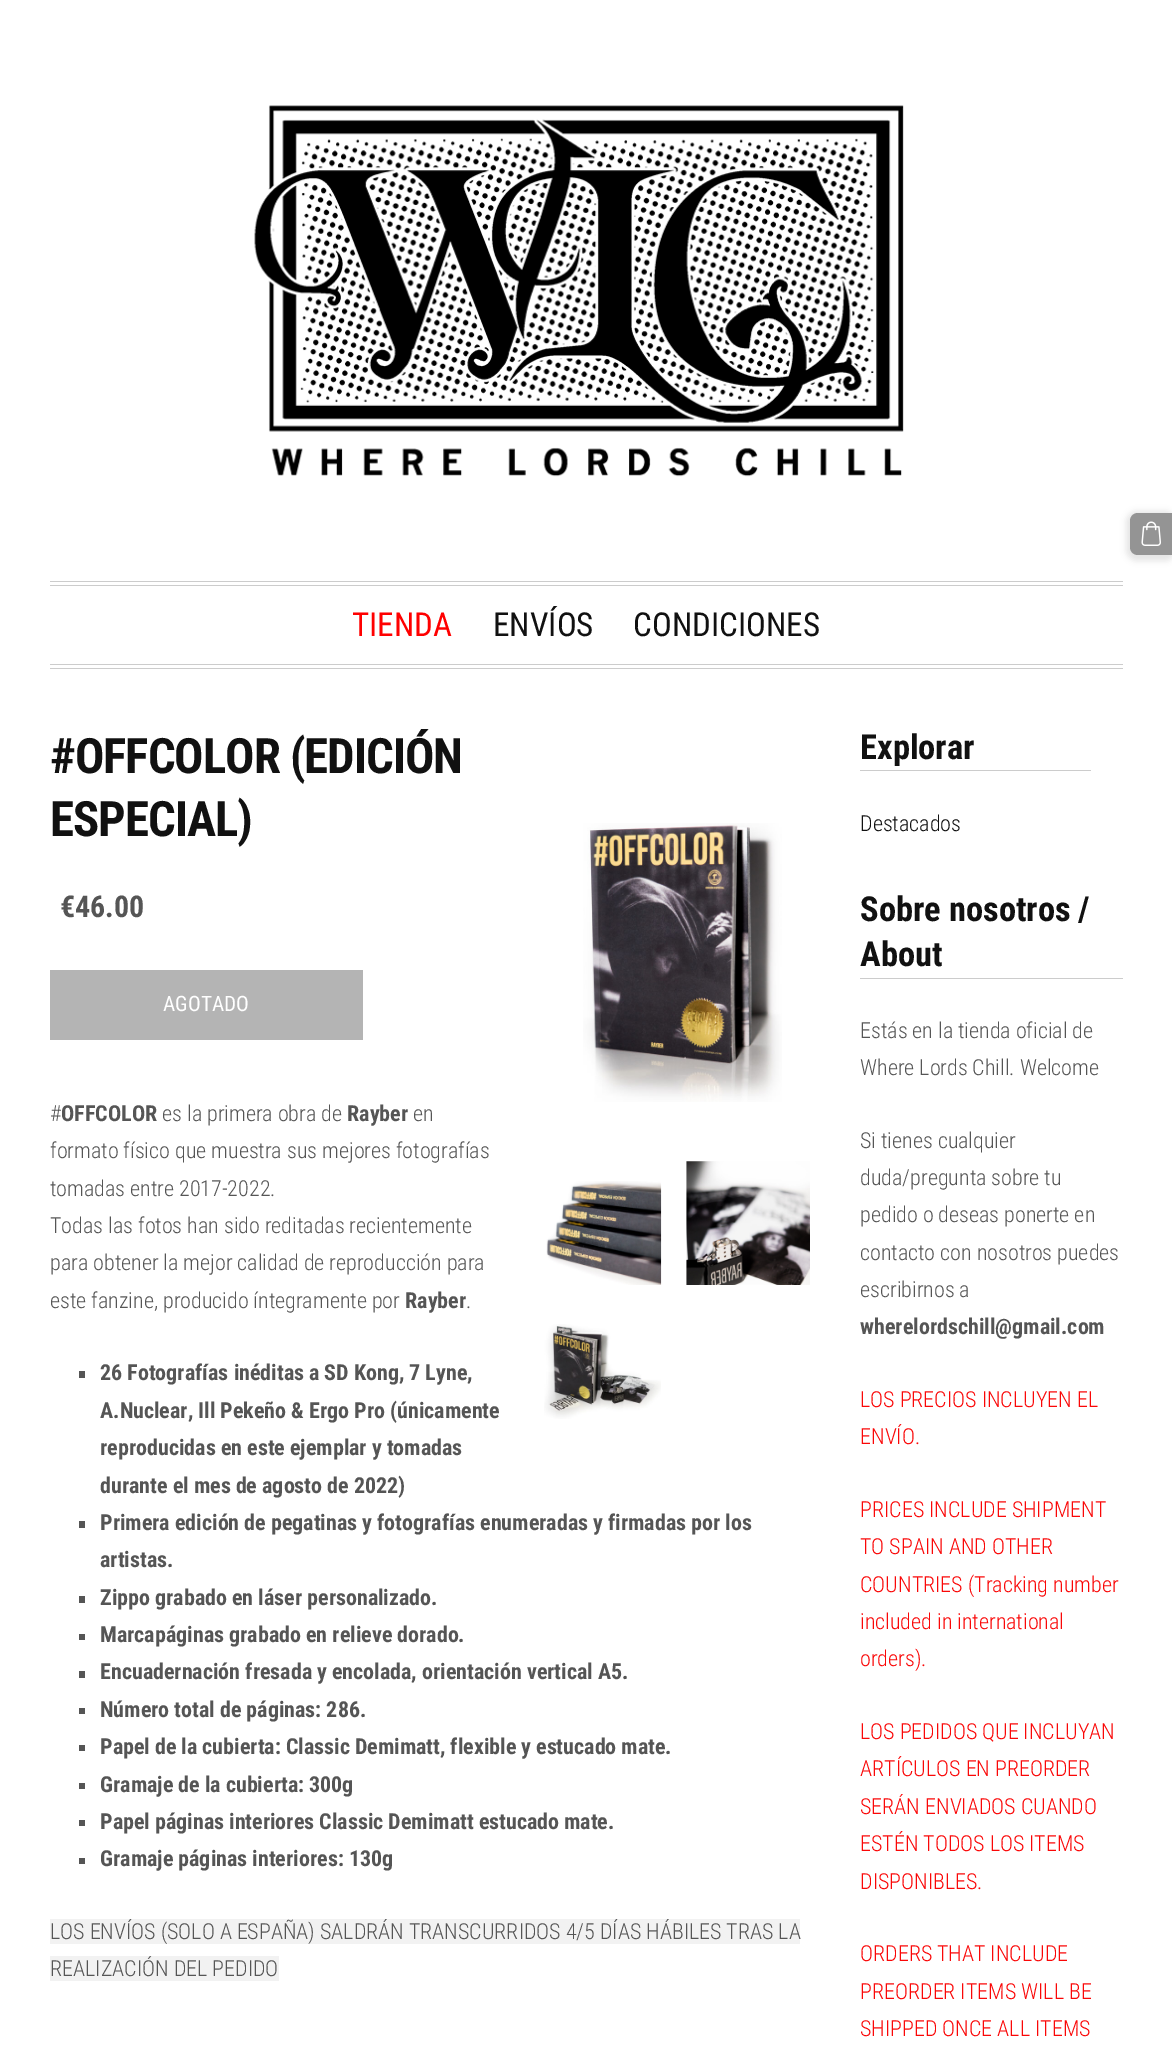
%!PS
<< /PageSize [1172 2049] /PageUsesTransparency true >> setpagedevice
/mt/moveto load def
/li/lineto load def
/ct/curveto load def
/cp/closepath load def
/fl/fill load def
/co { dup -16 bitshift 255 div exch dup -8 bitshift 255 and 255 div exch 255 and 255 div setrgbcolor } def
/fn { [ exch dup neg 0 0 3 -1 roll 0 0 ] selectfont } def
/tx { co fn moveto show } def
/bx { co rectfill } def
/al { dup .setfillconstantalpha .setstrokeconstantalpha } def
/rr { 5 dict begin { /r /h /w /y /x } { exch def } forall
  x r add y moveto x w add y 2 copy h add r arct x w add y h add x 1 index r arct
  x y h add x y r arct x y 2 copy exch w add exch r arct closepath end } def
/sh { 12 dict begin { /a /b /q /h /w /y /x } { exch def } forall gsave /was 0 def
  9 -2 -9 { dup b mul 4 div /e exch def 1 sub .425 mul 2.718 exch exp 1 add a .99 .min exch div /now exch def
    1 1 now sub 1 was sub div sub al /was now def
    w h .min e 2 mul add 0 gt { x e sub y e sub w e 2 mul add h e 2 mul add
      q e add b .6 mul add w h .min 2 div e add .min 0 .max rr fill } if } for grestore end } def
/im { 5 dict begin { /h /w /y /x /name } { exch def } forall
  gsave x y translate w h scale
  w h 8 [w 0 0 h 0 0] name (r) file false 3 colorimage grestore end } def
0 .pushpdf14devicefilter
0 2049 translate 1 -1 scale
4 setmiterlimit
0 0 1172 2049 16#FFFFFF bx
(media/1.raw) 254 105 650 372 im
50 581 1073 1 16#CCCCCC bx
50 585 1073 1 16#CCCCCC bx
50 664 1073 1 16#CCCCCC bx
50 668 1073 1 16#CCCCCC bx
16#000000 co
1126 511 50 50 11 3 .1 sh
16#949494 co
1138 513 mt 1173 513 li 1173 555 li 1138 555 li 1133.5 555 1130 551.5 1130 547 ct 1130 521 li 1130 516.5 1133.5 513 1138 513 ct cp fl
(media/2.raw) 1141 521 20 25 im
50 970 313 70 16#B4B4B4 bx
79 1371 6 7 16#555555 bx
79 1521 6 7 16#555555 bx
79 1596 6 7 16#555555 bx
79 1634 6 6 16#555555 bx
79 1671 6 7 16#555555 bx
79 1708 6 6 16#555555 bx
79 1745 6 6 16#555555 bx
79 1783 6 6 16#555555 bx
79 1820 6 6 16#555555 bx
79 1858 6 6 16#555555 bx
50 1919 750 25 16#F2F2F2 bx
50 1956 229 25 16#F2F2F2 bx
(media/3.raw) 583 823 199 279 im
(media/4.raw) 546 1181 116 104 im
(media/5.raw) 686 1161 124 124 im
(media/6.raw) 544 1324 117 95 im
860 770 231 1 16#CCCCCC bx
860 978 263 1 16#CCCCCC bx
(TIENDA) 352 636 /RobotoCondensed-Regular 33 16#FF0000 tx
(ENVÍOS) 493 636 /RobotoCondensed-Regular 33 16#111111 tx
(CONDICIONES) 633 636 /RobotoCondensed-Regular 33 16#111111 tx
/RobotoCondensed-Bold 48.75 fn
50 773 mt -1 0 (#OFFCOLOR \(EDICIÓN) ashow
50 836 mt -1 0 (ESPECIAL\)) ashow
(€46.00) 60 917 /RobotoCondensed-Bold 30 16#555555 tx
(AGOTADO) 163 1011 /RobotoCondensed-Regular 21.25 16#FFFFFF tx
(#) 50 1121 /RobotoCondensed-Light 22 16#555555 tx
(OFFCOLOR) 61 1121 /RobotoCondensed-Bold 22 16#555555 tx
(es la primera obra de) 162 1121 /RobotoCondensed-Light 22 16#555555 tx
(Rayber) 347 1121 /RobotoCondensed-Bold 22 16#555555 tx
(en) 413 1121 /RobotoCondensed-Light 22 16#555555 tx
(formato físico que muestra sus mejores fotografías) 50 1158 /RobotoCondensed-Light 22 16#555555 tx
(tomadas entre 2017-2022.) 50 1196 /RobotoCondensed-Light 22 16#555555 tx
(Todas las fotos han sido reditadas recientemente) 50 1233 /RobotoCondensed-Light 22 16#555555 tx
(para obtener la mejor calidad de reproducción para) 50 1270 /RobotoCondensed-Light 22 16#555555 tx
(este fanzine, producido íntegramente por) 50 1308 /RobotoCondensed-Light 22 16#555555 tx
(Rayber) 405 1308 /RobotoCondensed-Bold 22 16#555555 tx
(.) 466 1308 /RobotoCondensed-Light 22 16#555555 tx
(26 Fotografías inéditas a SD Kong, 7 Lyne,) 100 1380 /RobotoCondensed-Bold 22 16#555555 tx
(A.Nuclear, Ill Pekeño & Ergo Pro \(únicamente) 100 1418 /RobotoCondensed-Bold 22 16#555555 tx
(reproducidas en este ejemplar y tomadas) 100 1455 /RobotoCondensed-Bold 22 16#555555 tx
(durante el mes de agosto de 2022\)) 100 1493 /RobotoCondensed-Bold 22 16#555555 tx
(Primera edición de pegatinas y fotografías enumeradas y firmadas por los) 100 1530 /RobotoCondensed-Bold 22 16#555555 tx
(artistas.) 100 1567 /RobotoCondensed-Bold 22 16#555555 tx
(Zippo grabado en láser personalizado.) 100 1605 /RobotoCondensed-Bold 22 16#555555 tx
(Marcapáginas grabado en relieve dorado.) 100 1642 /RobotoCondensed-Bold 22 16#555555 tx
(Encuadernación fresada y encolada, orientación vertical A5.) 100 1679 /RobotoCondensed-Bold 22 16#555555 tx
(Número total de páginas: 286.) 100 1717 /RobotoCondensed-Bold 22 16#555555 tx
(Papel de la cubierta: Classic Demimatt, flexible y estucado mate.) 100 1754 /RobotoCondensed-Bold 22 16#555555 tx
(Gramaje de la cubierta: 300g) 100 1792 /RobotoCondensed-Bold 22 16#555555 tx
(Papel páginas interiores Classic Demimatt estucado mate.) 100 1829 /RobotoCondensed-Bold 22 16#555555 tx
(Gramaje páginas interiores: 130g) 100 1866 /RobotoCondensed-Bold 22 16#555555 tx
(LOS ENVÍOS \(SOLO A ESPAÑA\) SALDRÁN TRANSCURRIDOS 4/5 DÍAS HÁBILES TRAS LA) 50 1939 /RobotoCondensed-Light 22 16#555555 tx
(REALIZACIÓN DEL PEDIDO) 50 1976 /RobotoCondensed-Light 22 16#555555 tx
(Explorar) 860 759 /RobotoCondensed-Bold 34.5 16#111111 tx
(Destacados) 860 831 /RobotoCondensed-Light 22 16#111111 tx
(Sobre nosotros /) 860 921 /RobotoCondensed-Bold 34.5 16#111111 tx
(About) 860 966 /RobotoCondensed-Bold 34.5 16#111111 tx
(Estás en la tienda oficial de) 860 1038 /RobotoCondensed-Light 22 16#555555 tx
(Where Lords Chill. Welcome) 860 1075 /RobotoCondensed-Light 22 16#555555 tx
(Si tienes cualquier) 860 1148 /RobotoCondensed-Light 22 16#555555 tx
(duda/pregunta sobre tu) 860 1185 /RobotoCondensed-Light 22 16#555555 tx
(pedido o deseas ponerte en) 860 1222 /RobotoCondensed-Light 22 16#555555 tx
(contacto con nosotros puedes) 860 1260 /RobotoCondensed-Light 22 16#555555 tx
(escribirnos a) 860 1297 /RobotoCondensed-Light 22 16#555555 tx
(wherelordschill@gmail.com) 860 1334 /RobotoCondensed-Bold 22 16#555555 tx
(LOS PRECIOS INCLUYEN EL) 860 1407 /RobotoCondensed-Light 22 16#FA0707 tx
(ENVÍO.) 860 1444 /RobotoCondensed-Light 22 16#FA0707 tx
(PRICES INCLUDE SHIPMENT) 860 1517 /RobotoCondensed-Light 22 16#FA0707 tx
(TO SPAIN AND OTHER) 860 1554 /RobotoCondensed-Light 22 16#FA0707 tx
(COUNTRIES \(Tracking number) 860 1592 /RobotoCondensed-Light 22 16#FA0707 tx
(included in international) 860 1629 /RobotoCondensed-Light 22 16#FA0707 tx
(orders\).) 860 1666 /RobotoCondensed-Light 22 16#FA0707 tx
(LOS PEDIDOS QUE INCLUYAN) 860 1739 /RobotoCondensed-Light 22 16#FA0707 tx
(ARTÍCULOS EN PREORDER) 860 1776 /RobotoCondensed-Light 22 16#FA0707 tx
(SERÁN ENVIADOS CUANDO) 860 1814 /RobotoCondensed-Light 22 16#FA0707 tx
(ESTÉN TODOS LOS ITEMS) 860 1851 /RobotoCondensed-Light 22 16#FA0707 tx
(DISPONIBLES.) 860 1889 /RobotoCondensed-Light 22 16#FA0707 tx
(ORDERS THAT INCLUDE) 860 1961 /RobotoCondensed-Light 22 16#FA0707 tx
(PREORDER ITEMS WILL BE) 860 1999 /RobotoCondensed-Light 22 16#FA0707 tx
(SHIPPED ONCE ALL ITEMS) 860 2036 /RobotoCondensed-Light 22 16#FA0707 tx
.poppdf14devicefilter showpage
